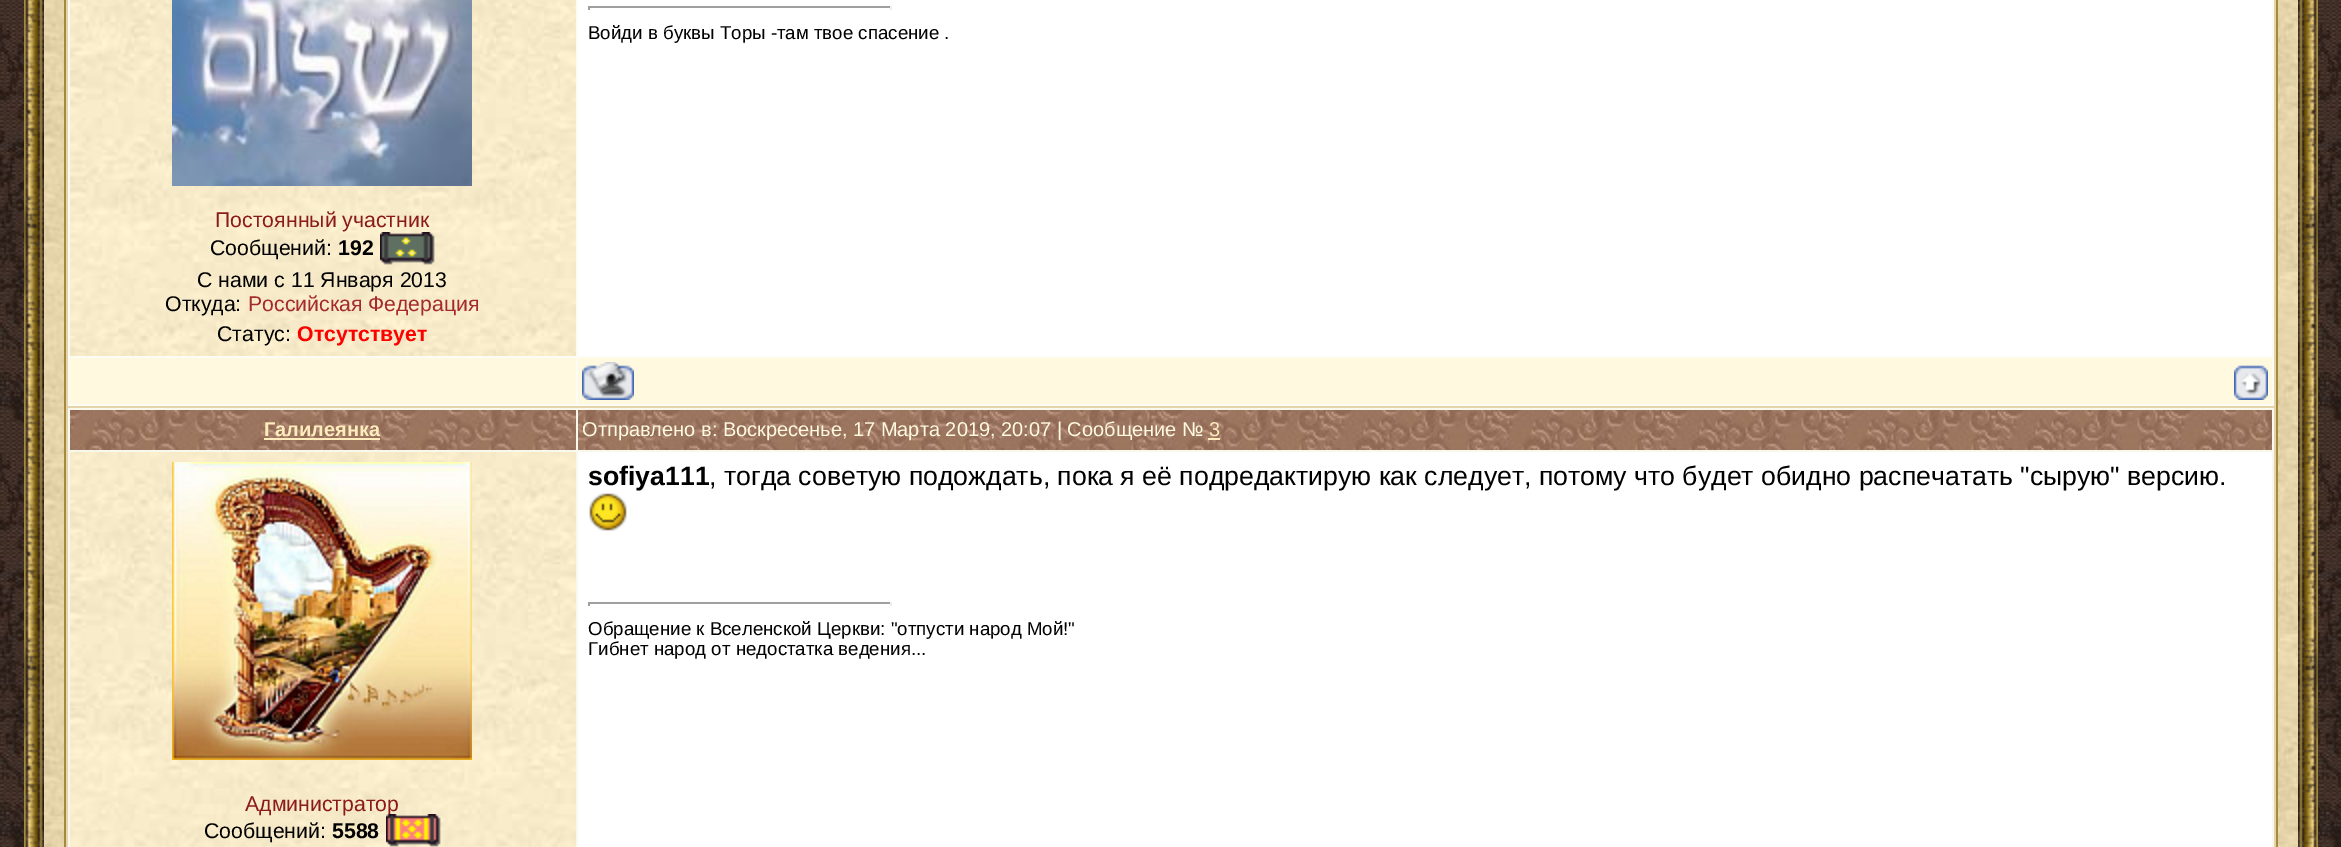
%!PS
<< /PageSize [2341 847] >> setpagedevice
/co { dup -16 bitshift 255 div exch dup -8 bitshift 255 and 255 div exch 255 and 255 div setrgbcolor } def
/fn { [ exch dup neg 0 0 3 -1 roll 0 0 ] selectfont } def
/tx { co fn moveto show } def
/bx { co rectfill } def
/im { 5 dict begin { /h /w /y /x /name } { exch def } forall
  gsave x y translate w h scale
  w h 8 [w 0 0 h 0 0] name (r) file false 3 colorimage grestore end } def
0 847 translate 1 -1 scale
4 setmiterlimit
0 0 2341 847 16#FFFFFF bx
(media/1.raw) 0 0 2341 847 im
(media/2.raw) 24 0 20 847 im
(media/3.raw) 44 0 2254 847 im
66 0 2210 847 16#E5D4A9 bx
2276 0 2 847 16#A5893C bx
64 0 2 847 16#A5893C bx
68 0 2206 406 16#FDFCF4 bx
578 0 1694 356 16#FFFFFF bx
588 6 304 2 16#9F9F9F bx
890 6 2 4 16#EEEEEE bx
588 6 2 4 16#9F9F9F bx
(media/4.raw) 70 0 506 356 im
(media/5.raw) 172 0 300 186 im
(media/6.raw) 380 232 55 33 im
70 358 506 46 16#FFFADF bx
578 358 1694 46 16#FFFADF bx
(media/7.raw) 582 362 52 38 im
(media/8.raw) 2234 365 34 35 im
68 408 2206 439 16#F8F8ED bx
(media/9.raw) 70 410 506 40 im
264 438 116 2 16#FFECBD bx
(media/10.raw) 578 410 1694 40 im
1208 438 12 2 16#FFECBD bx
578 452 1694 395 16#FFFFFF bx
(media/11.raw) 589 493 38 38 im
588 602 304 2 16#9F9F9F bx
890 602 2 4 16#EEEEEE bx
588 602 2 4 16#9F9F9F bx
(media/12.raw) 70 452 506 395 im
(media/13.raw) 172 462 300 298 im
(media/15.raw) 2298 0 20 847 im
(Войди в буквы Торы -там твое спасение .) 588 39 /LiberationSans-Regular 18.7 16#000000 tx
(Постоянный участник) 215 227 /LiberationSans-Regular 21.25 16#8B1A1A tx
(Сообщений:) 210 255 /LiberationSans-Regular 21.25 16#000000 tx
(192) 338 255 /LiberationSans-Bold 21.25 16#000000 tx
(C нами с 11 Января 2013) 197 287 /LiberationSans-Regular 21.25 16#000000 tx
(Откуда:) 165 311 /LiberationSans-Regular 21.25 16#000000 tx
(Российская Федерация) 248 311 /LiberationSans-Regular 21.25 16#A52A2A tx
(Статус:) 217 341 /LiberationSans-Regular 21.25 16#000000 tx
(Отсутствует) 297 341 /LiberationSans-Bold 21.25 16#FF0000 tx
(Галилеянка) 264 436 /LiberationSans-Bold 20 16#FFECBD tx
(Отправлено в: Воскресенье, 17 Марта 2019, 20:07 | Сообщение №) 582 436 /LiberationSans-Regular 20 16#FFFADF tx
(3) 1209 436 /LiberationSans-Regular 20 16#FFECBD tx
(sofiya111) 588 485 /LiberationSans-Bold 26.67 16#000000 tx
(, тогда советую подождать, пока я её подредактирую как следует, потому что будет обидно распечатать "сырую" версию.) 709 485 /LiberationSans-Regular 26.67 16#000000 tx
(Обращение к Вселенской Церкви: "отпусти народ Мой!") 588 635 /LiberationSans-Regular 18.7 16#000000 tx
(Гибнет народ от недостатка ведения...) 588 655 /LiberationSans-Regular 18.7 16#000000 tx
(Администратор) 245 811 /LiberationSans-Regular 21.25 16#8B1A1A tx
(Сообщений:) 204 838 /LiberationSans-Regular 21.25 16#000000 tx
(5588) 332 838 /LiberationSans-Bold 21.25 16#000000 tx
(media/14.raw) 386 814 55 33 im
showpage
